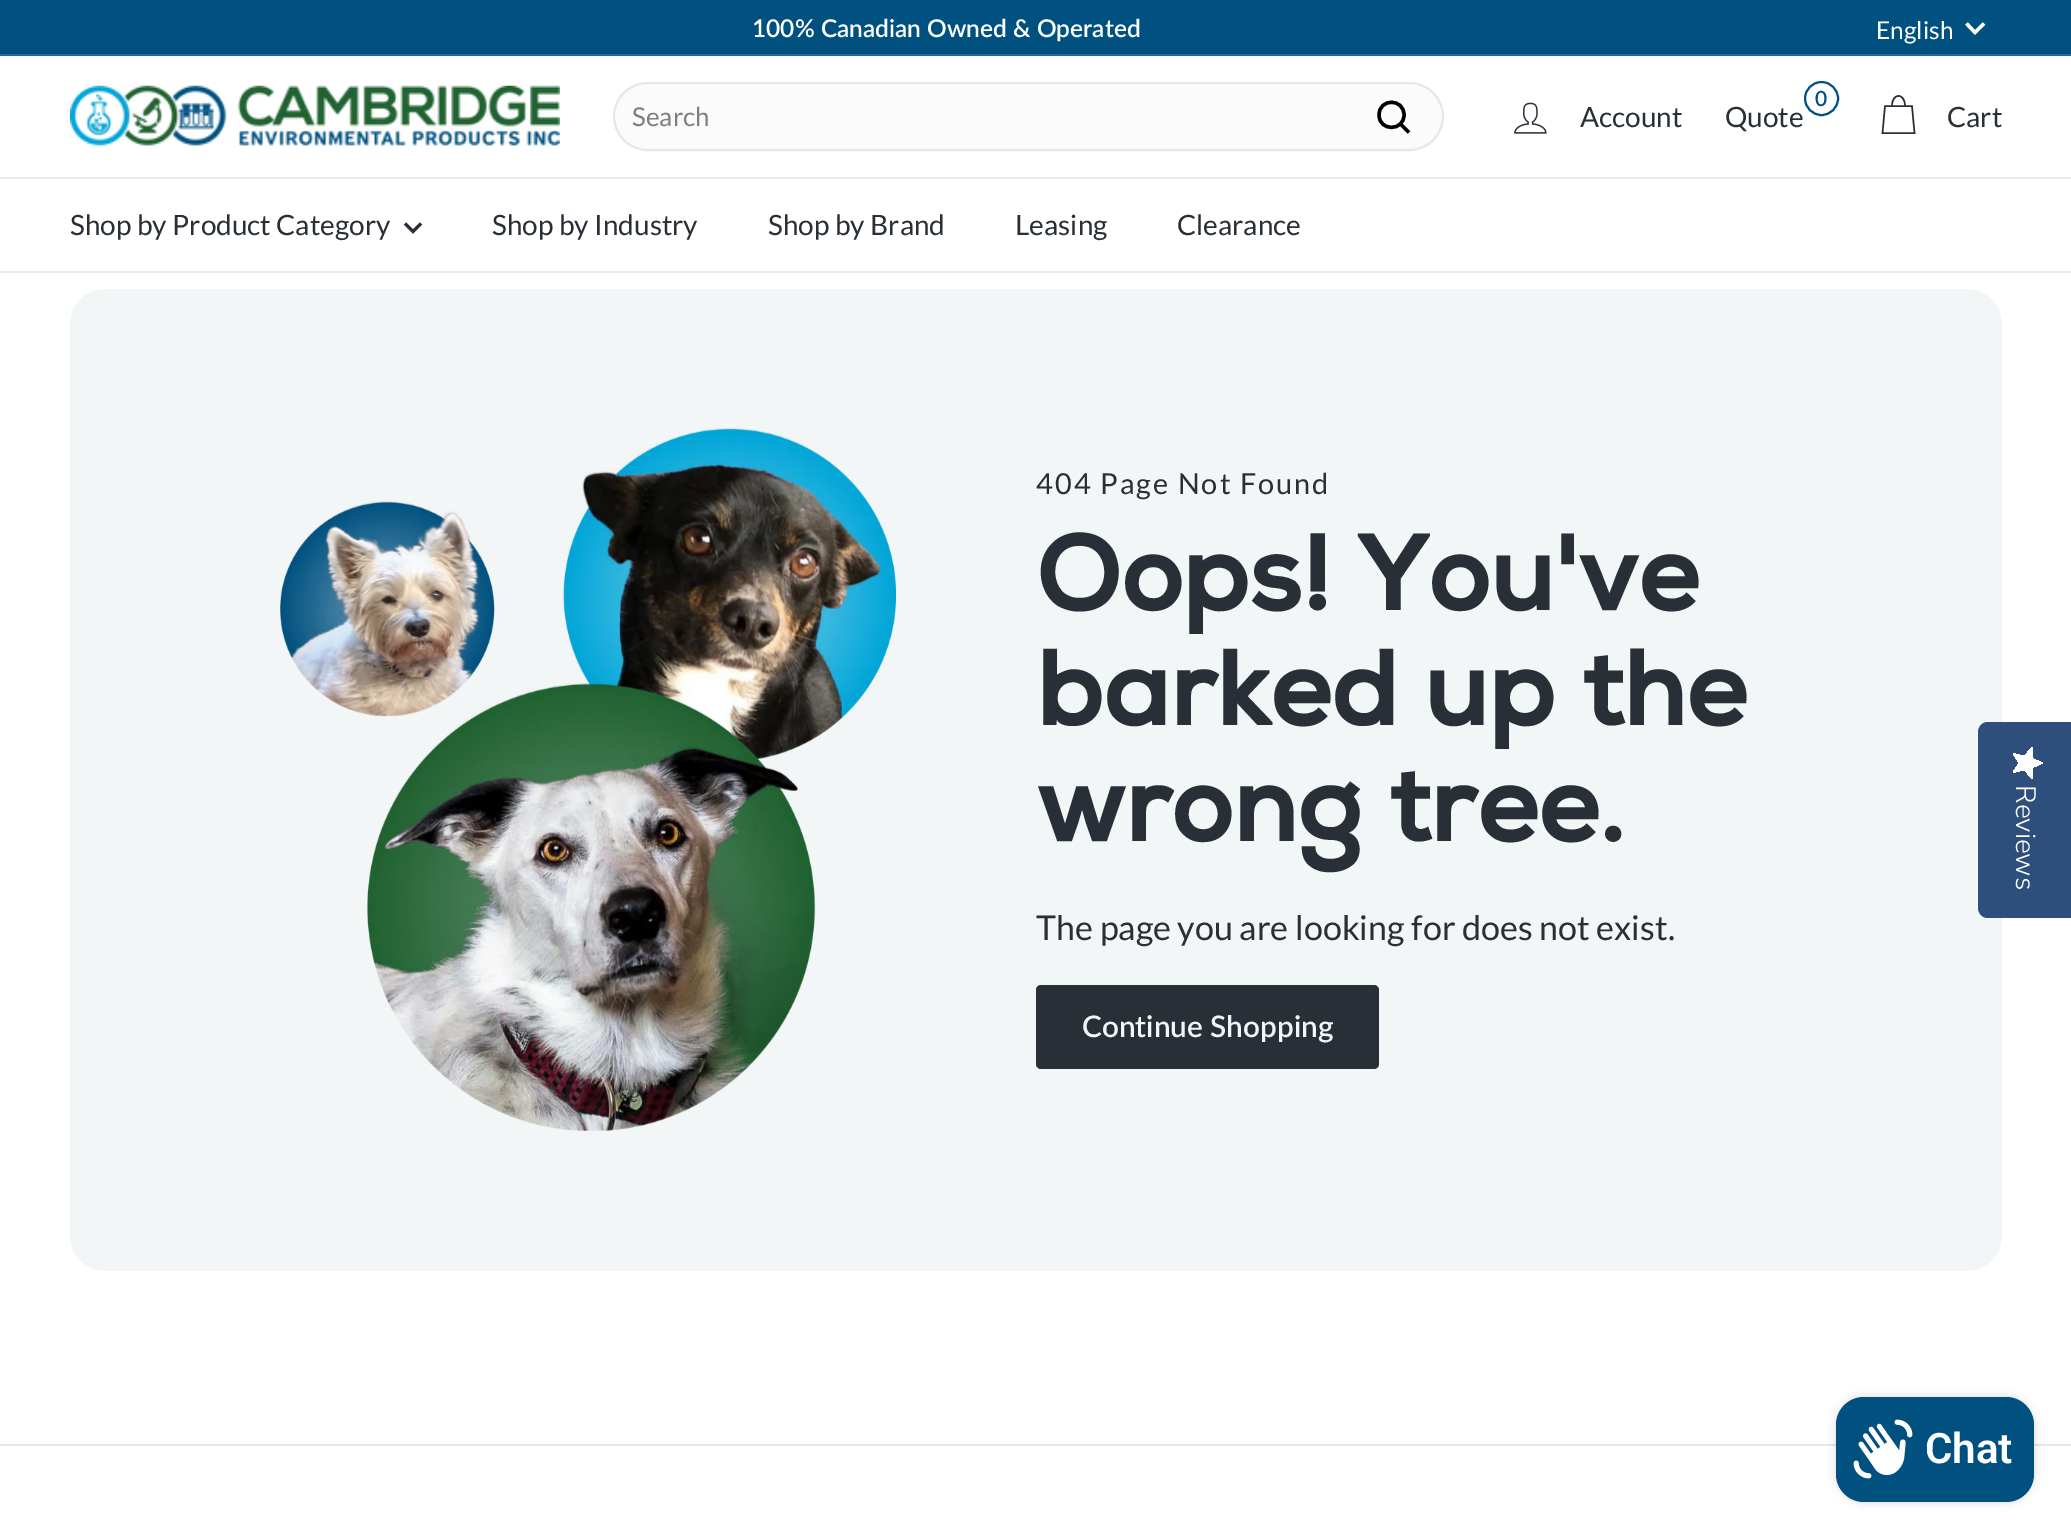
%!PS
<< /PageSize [2071 1538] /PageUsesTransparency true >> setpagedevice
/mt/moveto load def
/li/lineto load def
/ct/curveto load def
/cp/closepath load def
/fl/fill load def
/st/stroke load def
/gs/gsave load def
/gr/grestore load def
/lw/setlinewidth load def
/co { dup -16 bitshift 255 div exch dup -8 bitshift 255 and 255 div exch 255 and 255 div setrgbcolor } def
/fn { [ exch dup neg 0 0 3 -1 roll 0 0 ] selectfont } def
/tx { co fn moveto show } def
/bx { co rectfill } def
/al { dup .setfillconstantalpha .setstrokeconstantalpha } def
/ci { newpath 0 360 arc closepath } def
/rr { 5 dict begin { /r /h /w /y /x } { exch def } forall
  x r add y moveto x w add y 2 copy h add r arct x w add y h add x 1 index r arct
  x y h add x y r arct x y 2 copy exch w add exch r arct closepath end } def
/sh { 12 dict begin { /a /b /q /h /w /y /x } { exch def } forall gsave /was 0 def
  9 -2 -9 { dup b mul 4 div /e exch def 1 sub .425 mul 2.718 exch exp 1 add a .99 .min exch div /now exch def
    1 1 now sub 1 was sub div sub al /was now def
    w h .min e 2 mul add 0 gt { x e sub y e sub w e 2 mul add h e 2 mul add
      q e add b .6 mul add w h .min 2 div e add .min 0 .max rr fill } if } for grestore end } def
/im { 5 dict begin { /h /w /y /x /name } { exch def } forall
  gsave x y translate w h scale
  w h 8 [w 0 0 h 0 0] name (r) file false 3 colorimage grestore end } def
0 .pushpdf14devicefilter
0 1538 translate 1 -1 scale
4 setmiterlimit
0 0 2071 1538 16#FFFFFF bx
0 0 2071 54 16#005180 bx
16#FFFFFF co
3.4 lw
1966.5 23.5 mt 1975 32.5 li 1984 23.5 li st
0 54 2071 2 16#266B93 bx
(media/1.raw) 70 85 490 61 im
16#FBFBFB co
614 83 829 67 33.5 rr gs fl gr
16#E8E8E1 co
2 lw
st
16#000000 co
3.4 lw
1404 115 mt 1404 131.5 1379 131.5 1379 115 ct 1379 98 1404 98 1404 115 ct cp 1409 132.5 mt 1400.5 124 li st
(media/2.raw) 1514 102 33 32 im
16#005180 co
2 lw
1821.5 98.5 16.5 ci st
16#292F36 co
1.5 lw
1892 106 mt 1892 92.5 1905 92.5 1905 106 ct 1885 106 mt 1912 106 li 1914.5 133 li 1882.5 133 li cp st
0 177 2071 2 16#EAEAEB bx
16#292F36 co
3.1 lw
405 223.5 mt 413 231.5 li 421 223.5 li st
0 271 2071 2 16#EAEAEB bx
16#F3F6F6 co
70 289 1932 982 35 rr fl
(media/3.raw) 280 428 616 703 im
16#292F36 co
1036 985 343 84 5 rr fl
0 1444 2071 2 16#E8E8E1 bx
16#2E4F7C co
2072 722 mt 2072 918 li 1988 918 li 1982 918 1978 913 1978 908 ct 1978 732 li 1978 727 1982 722 1988 722 ct cp fl
gs 2019 763 mt 2013 772.5 li 2024.5 770 li 2032 779 li 2032.5 767.5 li 2043 763 li 2032.5 758.5 li 2032 747 li 2024.5 756 li 2013 753.5 li cp clip newpath
<< /ShadingType 2 /ColorSpace /DeviceRGB /Coords [2043 747 2043 779] /Extend [true true] /Function << /FunctionType 2 /Domain [0 1] /C0 [1 1 1] /C1 [1 1 1] /N 1 >> >> shfill gr
16#000000 co
1836 1397 198 105 28 4.5 .15 sh
16#005180 co
1836 1397 198 105 28 rr fl
(media/4.raw) 1853 1419 60 60 im
(100% Canadian Owned & Operated) 752 37 /Lato-SemiBold 24.5 16#FFFFFF tx
(English) 1876 39 /Lato-Regular 24.5 16#FFFFFF tx
(Search) 632 126 /Lato-Regular 26 16#7E7E7E tx
(Account) 1580 127 /Lato-Regular 28 16#292F36 tx
(0) 1815 106 /Lato-SemiBold 21 16#005180 tx
(Quote) 1725 127 /Lato-Regular 28 16#292F36 tx
(Cart) 1947 127 /Lato-Regular 28 16#292F36 tx
(Shop by Product Category) 70 235 /Lato-Regular 28 16#292F36 tx
(Shop by Industry) 492 235 /Lato-Regular 28 16#292F36 tx
(Shop by Brand) 768 235 /Lato-Regular 28 16#292F36 tx
(Leasing) 1015 235 /Lato-Regular 28 16#292F36 tx
(Clearance) 1177 235 /Lato-Regular 28 16#292F36 tx
/Lato-Regular 28.9 fn
1036 494 mt 2 0 (404 Page Not Found) ashow
(Oops! You've) 1036 610 /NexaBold-Bold 105 16#292F36 tx
(barked up the) 1036 725 /NexaBold-Bold 105 16#292F36 tx
(wrong tree.) 1036 841 /NexaBold-Bold 105 16#292F36 tx
(The page you are looking for does not exist.) 1036 940 /Lato-Regular 34.1 16#292F36 tx
(Continue Shopping) 1082 1037 /Lato-SemiBold 29.75 16#F3F6F6 tx
/NunitoSans-Light 28 fn
16#FFFFFF co
gs 2016 785 translate 90 rotate 0 0 mt (Reviews) show gr
(Chat) 1925 1463 /Roboto-SemiBold 42 16#FFFFFF tx
.poppdf14devicefilter showpage
